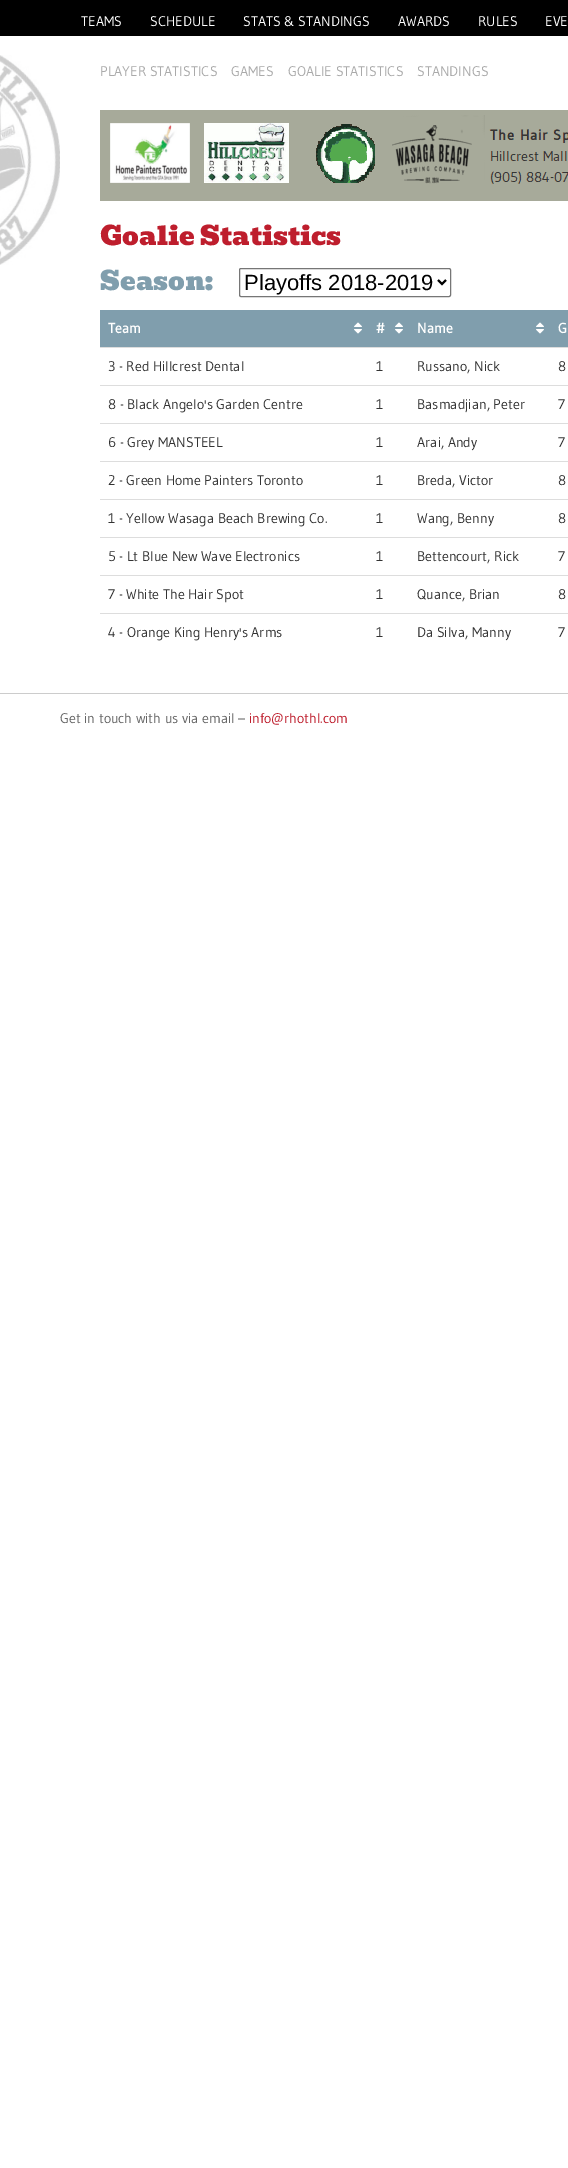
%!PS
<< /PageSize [568 2168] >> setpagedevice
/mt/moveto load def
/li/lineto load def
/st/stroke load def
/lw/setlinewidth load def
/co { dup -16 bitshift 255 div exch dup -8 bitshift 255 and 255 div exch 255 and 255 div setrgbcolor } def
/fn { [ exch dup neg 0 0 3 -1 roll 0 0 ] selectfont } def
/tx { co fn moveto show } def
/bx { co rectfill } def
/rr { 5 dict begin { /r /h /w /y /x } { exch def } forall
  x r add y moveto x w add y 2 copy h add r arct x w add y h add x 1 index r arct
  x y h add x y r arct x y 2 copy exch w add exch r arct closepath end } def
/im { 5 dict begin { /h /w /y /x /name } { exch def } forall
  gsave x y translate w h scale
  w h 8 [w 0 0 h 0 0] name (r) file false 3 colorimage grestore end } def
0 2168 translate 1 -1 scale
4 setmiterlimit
0 0 568 2168 16#FFFFFF bx
0 0 568 36 16#000000 bx
(media/1.raw) 0 55 60 210 im
(media/2.raw) 100 110 468 91 im
16#767676 co
239.5 268.5 211 28 1.5 rr st
16#000000 co
2 lw
438 280 mt 442 284 li 446 280 li st
100 310 468 37 16#809EAD bx
(media/3.raw) 354 322 8 12 im
(media/3.raw) 395 322 8 12 im
(media/3.raw) 536 322 8 12 im
100 347 468 1 16#DDDDDD bx
100 385 468 1 16#DDDDDD bx
100 423 468 1 16#DDDDDD bx
100 461 468 1 16#DDDDDD bx
100 499 468 1 16#DDDDDD bx
100 537 468 1 16#DDDDDD bx
100 575 468 1 16#DDDDDD bx
100 613 468 1 16#DDDDDD bx
0 693 568 1 16#CCCCCC bx
(TEAMS) 81 26 /Gudea-Regular 14 16#FFFFFF tx
(SCHEDULE) 150 26 /Gudea-Regular 14 16#FFFFFF tx
(STATS & STANDINGS) 243 26 /Gudea-Regular 14 16#FFFFFF tx
(AWARDS) 398 26 /Gudea-Regular 14 16#FFFFFF tx
(RULES) 478 26 /Gudea-Regular 14 16#FFFFFF tx
(EVE) 545 26 /Gudea-Regular 14 16#FFFFFF tx
(PLAYER STATISTICS) 100 76 /Gudea-Regular 14 16#AAAAAA tx
(GAMES) 231 76 /Gudea-Regular 14 16#AAAAAA tx
(GOALIE STATISTICS) 288 76 /Gudea-Regular 14 16#AAAAAA tx
(STANDINGS) 417 76 /Gudea-Regular 14 16#AAAAAA tx
(Goalie Statistics) 100 245 /Bevan-Regular 26 16#BE1E2D tx
(Season:) 100 290 /Bevan-Regular 26 16#809EAD tx
(Playoffs 2018-2019) 244 290 /LiberationSans-Regular 22 16#000000 tx
(Team) 108 333 /Gudea-Bold 14 16#FFFFFF tx
(#) 376 333 /Gudea-Bold 14 16#FFFFFF tx
(Name) 417 333 /Gudea-Bold 14 16#FFFFFF tx
(G) 558 333 /Gudea-Bold 14 16#FFFFFF tx
(3 - Red Hillcrest Dental) 108 371 /Gudea-Regular 14 16#333333 tx
(1) 376 371 /Gudea-Regular 14 16#333333 tx
(Russano, Nick) 417 371 /Gudea-Regular 14 16#333333 tx
(8) 558 371 /Gudea-Regular 14 16#333333 tx
(8 - Black Angelo's Garden Centre) 108 409 /Gudea-Regular 14 16#333333 tx
(1) 376 409 /Gudea-Regular 14 16#333333 tx
(Basmadjian, Peter) 417 409 /Gudea-Regular 14 16#333333 tx
(7) 558 409 /Gudea-Regular 14 16#333333 tx
(6 - Grey MANSTEEL) 108 447 /Gudea-Regular 14 16#333333 tx
(1) 376 447 /Gudea-Regular 14 16#333333 tx
(Arai, Andy) 417 447 /Gudea-Regular 14 16#333333 tx
(7) 558 447 /Gudea-Regular 14 16#333333 tx
(2 - Green Home Painters Toronto) 108 485 /Gudea-Regular 14 16#333333 tx
(1) 376 485 /Gudea-Regular 14 16#333333 tx
(Breda, Victor) 417 485 /Gudea-Regular 14 16#333333 tx
(8) 558 485 /Gudea-Regular 14 16#333333 tx
(1 - Yellow Wasaga Beach Brewing Co.) 108 523 /Gudea-Regular 14 16#333333 tx
(1) 376 523 /Gudea-Regular 14 16#333333 tx
(Wang, Benny) 417 523 /Gudea-Regular 14 16#333333 tx
(8) 558 523 /Gudea-Regular 14 16#333333 tx
(5 - Lt Blue New Wave Electronics) 108 561 /Gudea-Regular 14 16#333333 tx
(1) 376 561 /Gudea-Regular 14 16#333333 tx
(Bettencourt, Rick) 417 561 /Gudea-Regular 14 16#333333 tx
(7) 558 561 /Gudea-Regular 14 16#333333 tx
(7 - White The Hair Spot) 108 599 /Gudea-Regular 14 16#333333 tx
(1) 376 599 /Gudea-Regular 14 16#333333 tx
(Quance, Brian) 417 599 /Gudea-Regular 14 16#333333 tx
(8) 558 599 /Gudea-Regular 14 16#333333 tx
(4 - Orange King Henry's Arms) 108 637 /Gudea-Regular 14 16#333333 tx
(1) 376 637 /Gudea-Regular 14 16#333333 tx
(Da Silva, Manny) 417 637 /Gudea-Regular 14 16#333333 tx
(7) 558 637 /Gudea-Regular 14 16#333333 tx
(Get in touch with us via email –) 60 723 /Gudea-Regular 14 16#666666 tx
(info@rhothl.com) 249 723 /Gudea-Regular 14 16#BE1E2D tx
showpage
